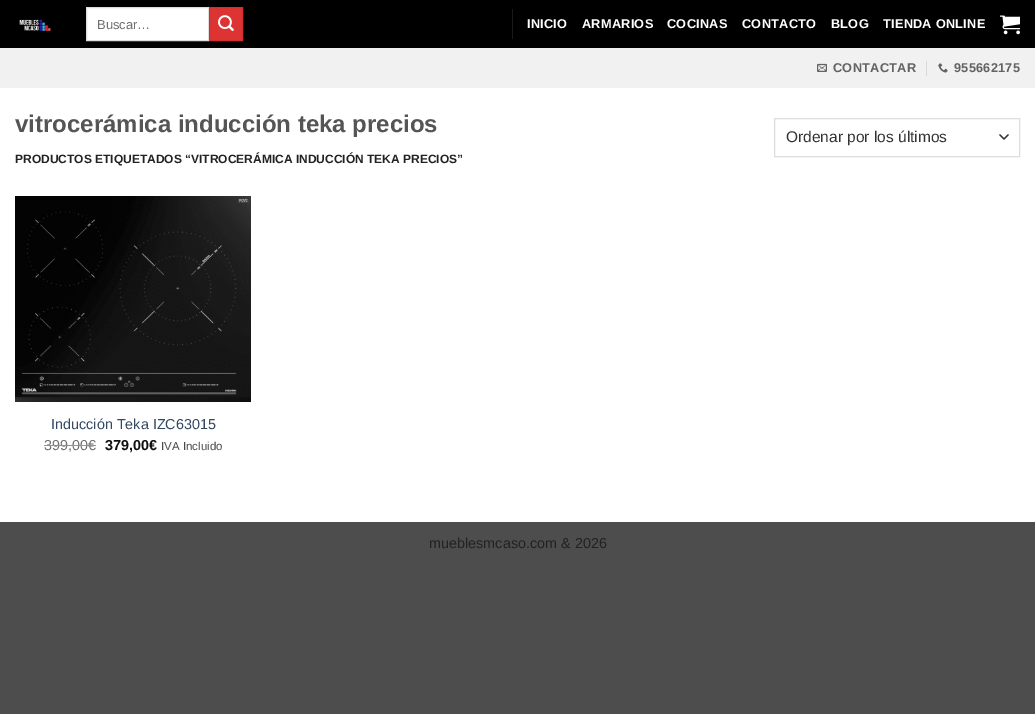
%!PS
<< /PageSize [1035 714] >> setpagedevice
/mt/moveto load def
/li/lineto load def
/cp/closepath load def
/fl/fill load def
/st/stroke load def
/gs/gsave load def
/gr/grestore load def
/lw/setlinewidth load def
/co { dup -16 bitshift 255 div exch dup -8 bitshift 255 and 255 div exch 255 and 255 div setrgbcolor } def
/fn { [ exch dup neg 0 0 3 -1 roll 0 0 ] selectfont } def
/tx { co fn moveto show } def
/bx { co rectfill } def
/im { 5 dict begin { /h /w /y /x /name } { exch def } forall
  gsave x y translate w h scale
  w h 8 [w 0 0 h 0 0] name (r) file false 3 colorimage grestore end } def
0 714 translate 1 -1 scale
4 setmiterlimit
0 0 1035 714 16#4D4D4D bx
0 88 1035 434 16#FFFFFF bx
0 0 1035 48 16#000000 bx
(media/1.raw) 19 19 32 12 im
16#FFFFFF co
86.5 7.5 mt 208.5 7.5 li 208.5 40.5 li 86.5 40.5 li cp gs fl gr
16#DDDDDD co
st
16#DD3333 co
209.5 7.5 mt 242.5 7.5 li 242.5 40.5 li 209.5 40.5 li cp gs fl gr
16#D23030 co
st
(media/2.raw) 218 15 16 16 im
512 9 1 30 16#1A1A1A bx
(media/3.raw) 1000 15 20 20 im
0 48 1035 40 16#F1F1F1 bx
(media/4.raw) 817 63 10 9 im
926 61 1 15 16#D9D9D9 bx
(media/5.raw) 938 63 10 10 im
16#333333 co
1.3 lw
1 setlinecap
1 setlinejoin
1000 135 mt 1004 139 li 1008 135 li st
16#DDDDDD co
1 lw
0 setlinecap
0 setlinejoin
774.5 118.5 245 38 rectstroke
(media/6.raw) 15 196 236 206 im
(Buscar…) 97 29 /LiberationSans-Regular 13 16#707070 tx
/LiberationSans-Bold 12.75 fn
16#FFFFFF co
527 28 mt .25 0 (INICIO) ashow
582 28 mt .25 0 (ARMARIOS) ashow
667 28 mt .25 0 (COCINAS) ashow
742 28 mt .25 0 (CONTACTO) ashow
831 28 mt .25 0 (BLOG) ashow
883 28 mt .25 0 (TIENDA ONLINE) ashow
16#636363 co
833 72 mt .25 0 (CONTACTAR) ashow
954 72 mt .25 0 (955662175) ashow
(vitrocerámica inducción teka precios) 15 132 /LiberationSans-Bold 24 16#555555 tx
(PRODUCTOS ETIQUETADOS “VITROCERÁMICA INDUCCIÓN TEKA PRECIOS”) 15 163 /LiberationSans-Bold 12 16#222222 tx
(Ordenar por los últimos) 786 142 /LiberationSans-Regular 15.5 16#333333 tx
(Inducción Teka IZC63015) 51 429 /LiberationSans-Regular 14.4 16#334862 tx
(399,00€) 44 450 /LiberationSans-Regular 14.4 16#707070 tx
44 445 52 1 16#929292 bx
(379,00€) 105 450 /LiberationSans-Bold 14.4 16#111111 tx
(IVA Incluido) 161 450 /LiberationSans-Regular 11.5 16#4A4A4A tx
(mueblesmcaso.com & 2026) 429 548 /LiberationSans-Regular 14.4 16#222222 tx
showpage
